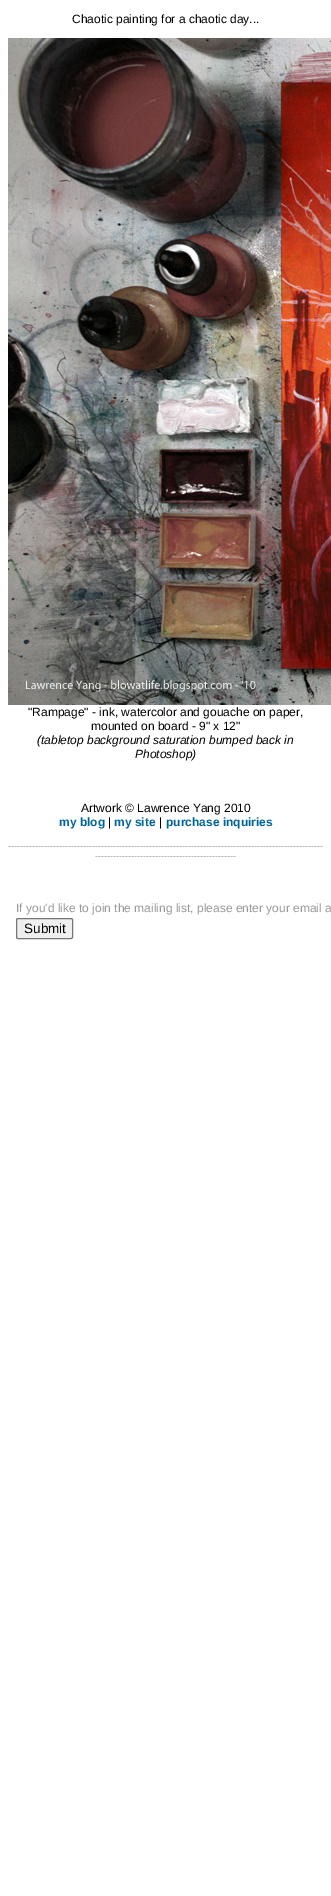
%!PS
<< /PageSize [331 1896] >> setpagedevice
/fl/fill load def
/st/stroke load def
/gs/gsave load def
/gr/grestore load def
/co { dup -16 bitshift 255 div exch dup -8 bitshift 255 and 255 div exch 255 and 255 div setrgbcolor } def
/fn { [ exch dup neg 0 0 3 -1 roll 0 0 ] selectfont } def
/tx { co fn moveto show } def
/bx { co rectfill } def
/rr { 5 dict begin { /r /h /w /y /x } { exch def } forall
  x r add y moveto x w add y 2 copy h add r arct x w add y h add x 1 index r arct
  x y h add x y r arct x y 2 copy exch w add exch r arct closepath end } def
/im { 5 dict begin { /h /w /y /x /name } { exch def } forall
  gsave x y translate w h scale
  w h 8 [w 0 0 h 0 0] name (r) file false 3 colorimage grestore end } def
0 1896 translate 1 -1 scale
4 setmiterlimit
0 0 331 1896 16#FFFFFF bx
(media/1.raw) 8 38 323 667 im
16#EFEFEF co
16.5 918.5 56 20 1.5 rr gs fl gr
16#767676 co
st
(Chaotic painting for a chaotic day...) 72 23 /LiberationSans-Regular 12 16#000000 tx
("Rampage" - ink, watercolor and gouache on paper,) 28 716 /LiberationSans-Regular 12 16#000000 tx
(mounted on board - 9" x 12") 91 730 /LiberationSans-Regular 12 16#000000 tx
(\(tabletop background saturation bumped back in) 37 744 /LiberationSans-Italic 12 16#000000 tx
(Photoshop\)) 135 758 /LiberationSans-Italic 12 16#000000 tx
(Artwork © Lawrence Yang 2010) 81 812 /LiberationSans-Regular 12 16#000000 tx
(my blog) 59 826 /LiberationSans-Bold 12 16#006699 tx
(|) 108 826 /LiberationSans-Regular 12 16#000000 tx
(my site) 114 826 /LiberationSans-Bold 12 16#006699 tx
(|) 159 826 /LiberationSans-Regular 12 16#000000 tx
(purchase inquiries) 166 826 /LiberationSans-Bold 12 16#006699 tx
(---------------------------------------------------------------------------------------------------------) 8 849 /LiberationSans-Regular 9 16#999999 tx
(-----------------------------------------------) 95 859 /LiberationSans-Regular 9 16#999999 tx
(If you'd like to join the mailing list, please enter your email a) 16 912 /LiberationSans-Regular 12 16#999999 tx
(Submit) 24 933 /LiberationSans-Regular 13.5 16#000000 tx
showpage
